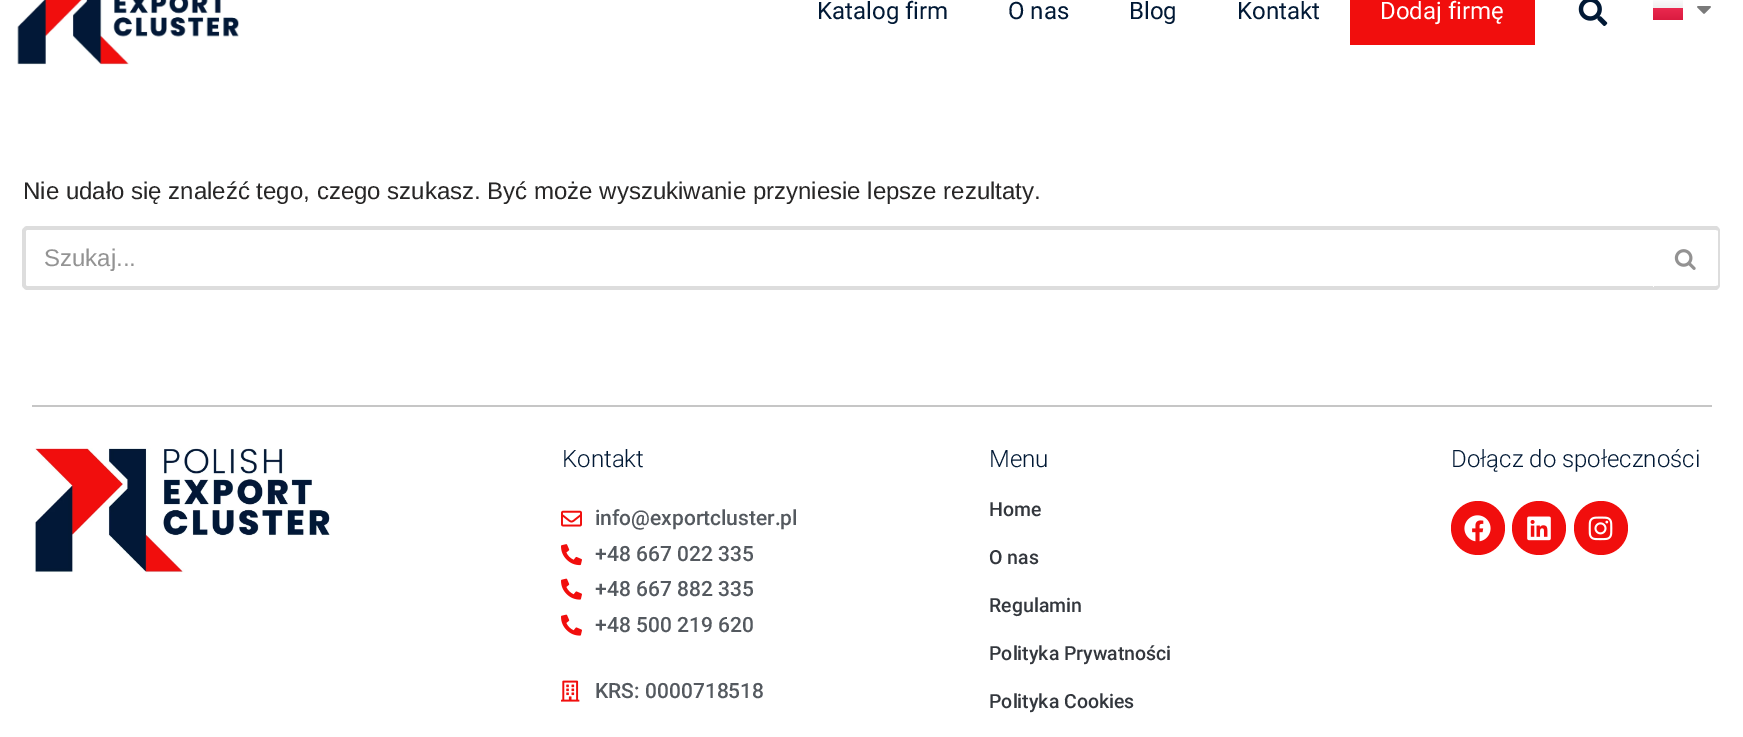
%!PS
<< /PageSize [1743 737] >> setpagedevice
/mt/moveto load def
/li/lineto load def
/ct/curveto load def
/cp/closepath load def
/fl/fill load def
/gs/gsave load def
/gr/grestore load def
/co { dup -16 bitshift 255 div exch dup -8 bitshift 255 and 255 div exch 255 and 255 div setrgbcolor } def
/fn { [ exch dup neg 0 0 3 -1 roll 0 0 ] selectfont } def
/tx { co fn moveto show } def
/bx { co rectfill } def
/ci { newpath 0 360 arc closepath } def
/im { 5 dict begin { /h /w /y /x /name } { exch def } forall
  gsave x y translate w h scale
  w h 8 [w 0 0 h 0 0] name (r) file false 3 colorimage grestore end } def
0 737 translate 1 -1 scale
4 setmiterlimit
0 0 1743 737 16#FFFFFF bx
(media/1.raw) 17 0 222 65 im
1350 0 185 45 16#F10E0D bx
(media/2.raw) 1578 0 30 26 im
gs 1653 0 mt 1683 0 li 1683 8 li 1653 8 li cp clip newpath
<< /ShadingType 2 /ColorSpace /DeviceRGB /Coords [1667 -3 1667 7.5] /Extend [true true] /Function << /FunctionType 2 /Domain [0 1] /C0 [1 1 1] /C1 [.941 .941 .941] /N 1 >> >> shfill gr
gs 1653 8 mt 1683 8 li 1683 20 li 1653 20 li cp clip newpath
<< /ShadingType 2 /ColorSpace /DeviceRGB /Coords [1667 7.5 1667 20] /Extend [true true] /Function << /FunctionType 2 /Domain [0 1] /C0 [.922 .165 .314] /C1 [.855 .106 .251] /N 1 >> >> shfill gr
(media/3.raw) 1697 6 14 8 im
16#DDDDDD co
27 226 mt 1653 226 li 1653 290 li 27 290 li 25 290 22 287 22 285 ct 22 231 li 22 229 25 226 27 226 ct cp 27 230 mt 1653 230 li 1653 286 li 27 286 li 26 286 26 286 26 285 ct 26 231 li 26 230 26 230 27 230 ct cp eofill
1653 226 mt 1716 226 li 1718 226 1720 229 1720 231 ct 1720 285 li 1720 287 1718 290 1716 290 ct 1653 290 li cp 1653 230 mt 1716 230 li 1717 230 1718 230 1718 231 ct 1718 285 li 1718 286 1717 286 1716 286 ct 1653 286 li cp eofill
(media/4.raw) 1674 249 22 21 im
1653 286 1 1 16#FFFFFF bx
32 405 1680 2 16#C6C6C6 bx
(media/5.raw) 34 448 296 125 im
(media/6.raw) 561 510 21 17 im
(media/7.raw) 561 544 21 22 im
(media/8.raw) 561 578 21 22 im
(media/8.raw) 561 614 21 22 im
(media/9.raw) 561 680 19 22 im
16#F10E0D co
1478 528 27 ci fl
(media/10.raw) 1464 515 27 27 im
1539 528 27 ci fl
(media/11.raw) 1527 516 24 25 im
1601 528 27 ci fl
(media/12.raw) 1588 516 25 25 im
(Katalog firm) 817 19 /Roboto-Regular 24 16#011935 tx
(O nas) 1008 19 /Roboto-Regular 24 16#011935 tx
(Blog) 1129 19 /Roboto-Regular 24 16#011935 tx
(Kontakt) 1237 19 /Roboto-Regular 24 16#011935 tx
(Dodaj firmę) 1380 19 /Roboto-Regular 24 16#FFFFFF tx
(Nie udało się znaleźć tego, czego szukasz. Być może wyszukiwanie przyniesie lepsze rezultaty.) 23 199 /LiberationSans-Regular 24 16#272626 tx
(Szukaj...) 44 266 /LiberationSans-Regular 24 16#939393 tx
(Kontakt) 562 467 /Roboto-Light 24 16#011935 tx
(info@exportcluster.pl) 595 525 /Roboto-Medium 21 16#54595F tx
(+48 667 022 335) 595 561 /Roboto-Medium 21 16#54595F tx
(+48 667 882 335) 595 596 /Roboto-Medium 21 16#54595F tx
(+48 500 219 620) 595 632 /Roboto-Medium 21 16#54595F tx
(KRS: 0000718518) 595 698 /Roboto-Medium 21 16#54595F tx
(Menu) 989 467 /Roboto-Light 24 16#011935 tx
(Home) 989 516 /Roboto-Medium 19.5 16#33373D tx
(O nas) 989 564 /Roboto-Medium 19.5 16#33373D tx
(Regulamin) 989 612 /Roboto-Medium 19.5 16#33373D tx
(Polityka Prywatności) 989 660 /Roboto-Medium 19.5 16#33373D tx
(Polityka Cookies) 989 708 /Roboto-Medium 19.5 16#33373D tx
(Dołącz do społeczności) 1451 467 /Roboto-Light 24 16#011935 tx
showpage
